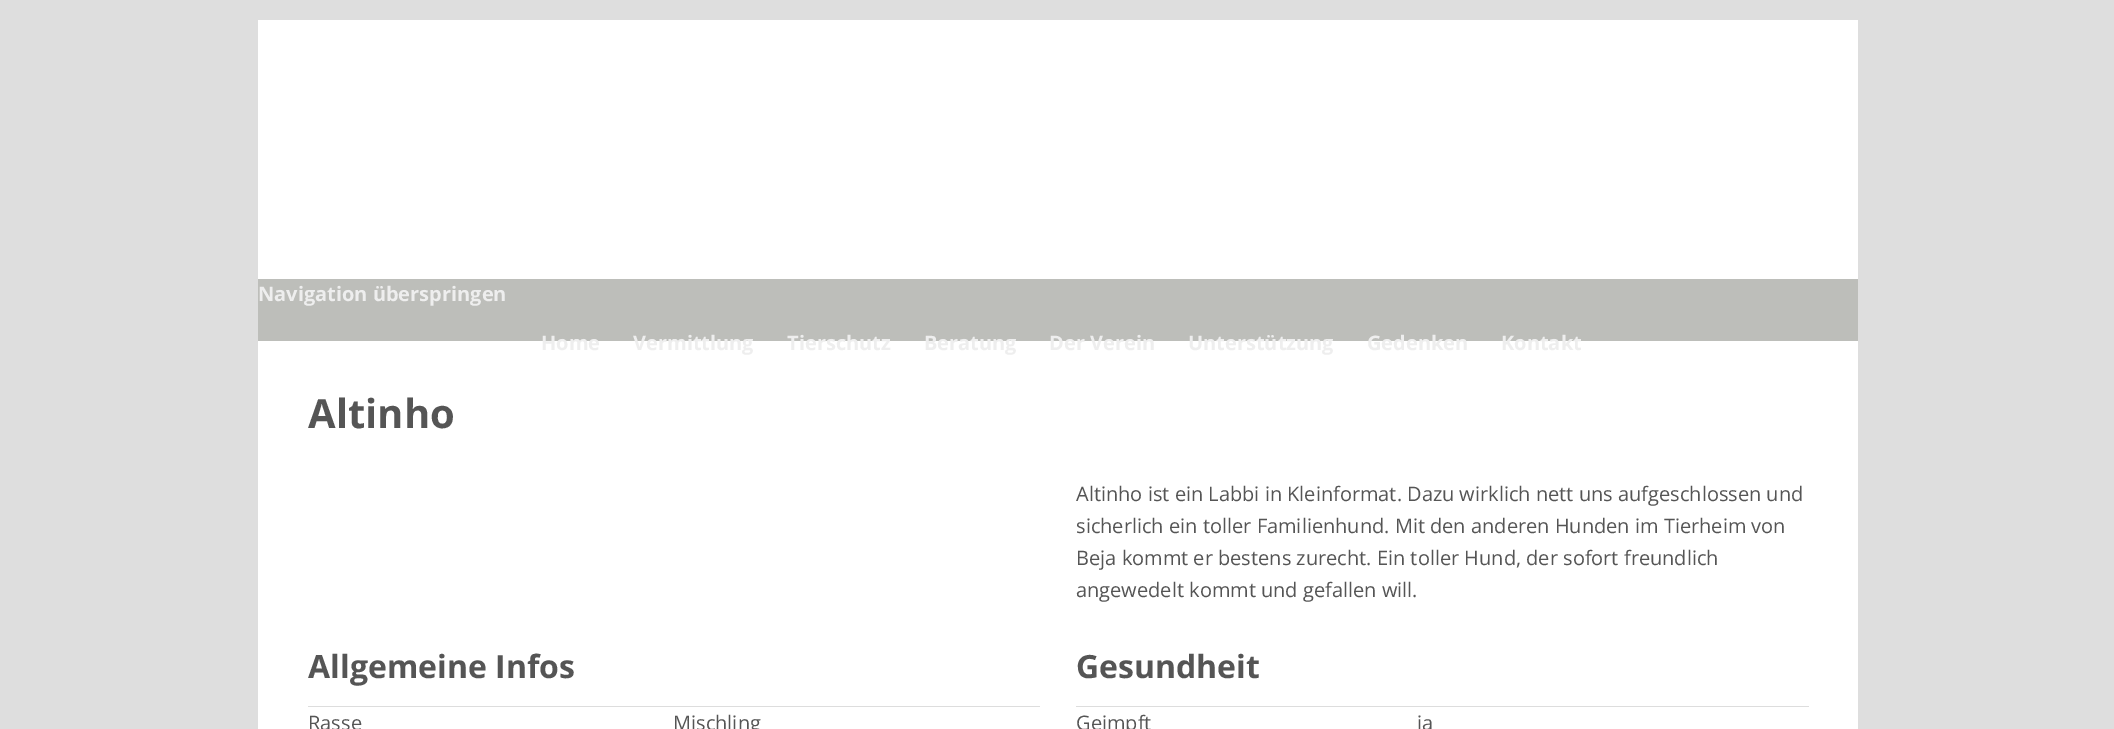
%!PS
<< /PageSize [2114 729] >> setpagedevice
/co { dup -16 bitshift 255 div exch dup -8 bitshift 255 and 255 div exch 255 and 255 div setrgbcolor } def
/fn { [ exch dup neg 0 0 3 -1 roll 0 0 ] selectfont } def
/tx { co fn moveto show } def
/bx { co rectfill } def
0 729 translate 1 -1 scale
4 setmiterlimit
0 0 2114 729 16#DEDEDE bx
258 20 1600 259 16#FFFFFF bx
258 279 1600 62 16#BDBEBA bx
258 341 1600 388 16#FFFFFF bx
308 706 732 1 16#DDDDDD bx
1076 706 733 1 16#DDDDDD bx
(Navigation überspringen) 258 301 /OpenSans-Bold 20 16#EEEEEE tx
(Home) 541 350 /OpenSans-Bold 20 16#EEEEEE tx
(Vermittlung) 633 350 /OpenSans-Bold 20 16#EEEEEE tx
(Tierschutz) 787 350 /OpenSans-Bold 20 16#EEEEEE tx
(Beratung) 924 350 /OpenSans-Bold 20 16#EEEEEE tx
(Der Verein) 1049 350 /OpenSans-Bold 20 16#EEEEEE tx
(Unterstützung) 1188 350 /OpenSans-Bold 20 16#EEEEEE tx
(Gedenken) 1367 350 /OpenSans-Bold 20 16#EEEEEE tx
(Kontakt) 1501 350 /OpenSans-Bold 20 16#EEEEEE tx
(Altinho) 308 428 /OpenSans-Bold 40 16#555555 tx
(Altinho ist ein Labbi in Kleinformat. Dazu wirklich nett uns aufgeschlossen und) 1076 501 /OpenSans-Regular 20 16#555555 tx
(sicherlich ein toller Familienhund. Mit den anderen Hunden im Tierheim von) 1076 533 /OpenSans-Regular 20 16#555555 tx
(Beja kommt er bestens zurecht. Ein toller Hund, der sofort freundlich) 1076 565 /OpenSans-Regular 20 16#555555 tx
(angewedelt kommt und gefallen will.) 1076 597 /OpenSans-Regular 20 16#555555 tx
(Allgemeine Infos) 308 678 /OpenSans-Bold 32 16#555555 tx
(Rasse) 308 730 /OpenSans-Regular 20 16#555555 tx
(Mischling) 673 730 /OpenSans-Regular 20 16#555555 tx
(Gesundheit) 1076 678 /OpenSans-Bold 32 16#555555 tx
(Geimpft) 1076 730 /OpenSans-Regular 20 16#555555 tx
(ja) 1417 730 /OpenSans-Regular 20 16#555555 tx
showpage
